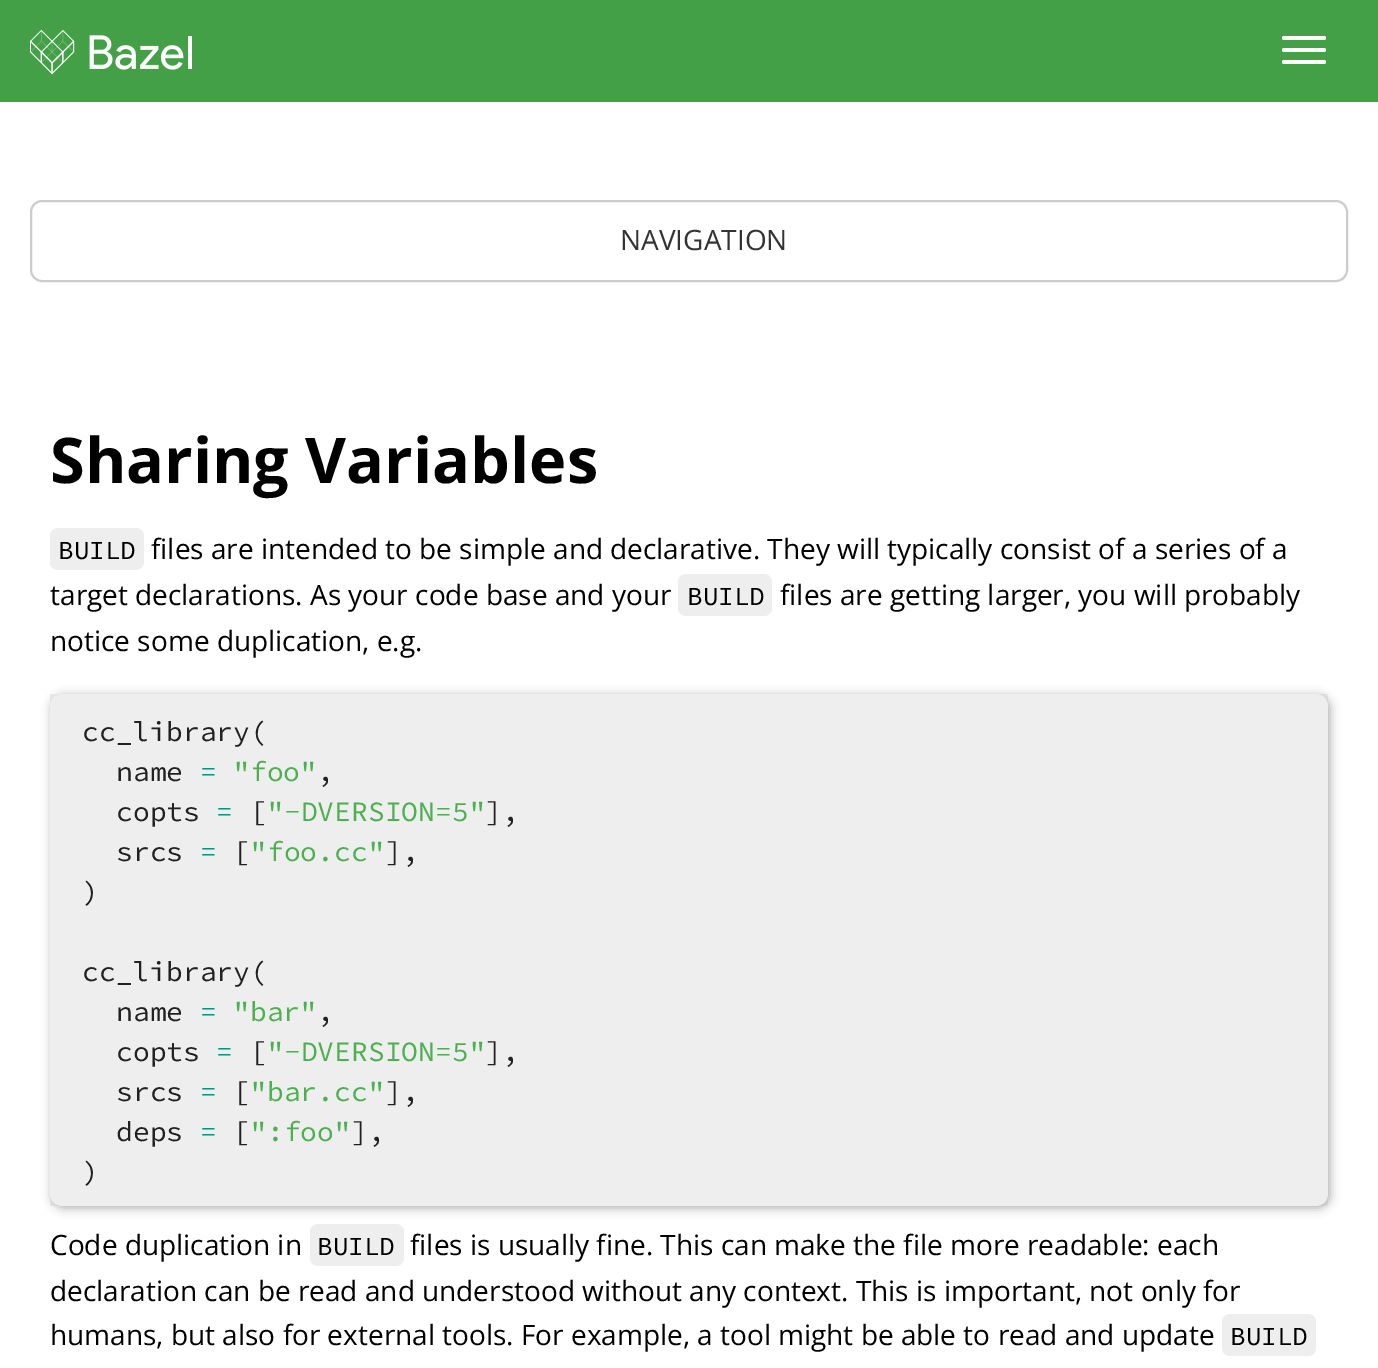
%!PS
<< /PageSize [1378 1368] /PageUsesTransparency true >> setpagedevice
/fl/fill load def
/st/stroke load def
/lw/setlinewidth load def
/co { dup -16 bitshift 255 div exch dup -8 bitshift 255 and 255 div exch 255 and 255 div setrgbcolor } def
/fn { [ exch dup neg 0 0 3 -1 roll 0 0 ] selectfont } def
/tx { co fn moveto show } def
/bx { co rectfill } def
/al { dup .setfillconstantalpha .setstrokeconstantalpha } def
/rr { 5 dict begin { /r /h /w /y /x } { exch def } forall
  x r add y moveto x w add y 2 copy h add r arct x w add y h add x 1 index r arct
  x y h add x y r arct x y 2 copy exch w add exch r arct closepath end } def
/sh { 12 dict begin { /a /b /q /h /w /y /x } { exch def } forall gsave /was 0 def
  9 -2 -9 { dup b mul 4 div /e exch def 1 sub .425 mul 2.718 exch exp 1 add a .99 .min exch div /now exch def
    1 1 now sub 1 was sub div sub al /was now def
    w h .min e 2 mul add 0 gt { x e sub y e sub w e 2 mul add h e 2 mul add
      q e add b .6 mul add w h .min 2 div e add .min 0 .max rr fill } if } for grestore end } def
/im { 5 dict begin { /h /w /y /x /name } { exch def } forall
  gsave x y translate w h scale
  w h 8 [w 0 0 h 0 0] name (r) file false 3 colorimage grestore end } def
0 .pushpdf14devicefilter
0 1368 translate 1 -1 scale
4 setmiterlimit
0 0 1378 1368 16#FFFFFF bx
0 0 1378 102 16#43A047 bx
(media/1.raw) 30 30 162 44 im
16#FFFFFF co
1282 36 44 4 2 rr fl
1282 48 44 4 2 rr fl
1282 60 44 4 2 rr fl
16#CCCCCC co
2 lw
31 201 1316 80 11 rr st
16#EEEEEE co
50 528 94 42 8 rr fl
678 574 94 42 8 rr fl
50 694 1278 512 16#EEEEEE bx
16#AAAAAA co
52 696 1278 512 12 5 1 sh
16#EEEEEE co
50 694 1278 512 12 rr fl
310 1224 94 42 8 rr fl
1222 1314 94 42 8 rr fl
(NAVIGATION) 620 250 /OpenSans-Regular 28 16#333333 tx
(Sharing Variables) 50 483 /OpenSans-Bold 63 16#000000 tx
(BUILD) 58 559 /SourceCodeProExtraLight-Regular 26 16#000000 tx
(files are intended to be simple and declarative. They will typically consist of a series of a) 151 559 /OpenSans-Regular 28 16#000000 tx
(target declarations. As your code base and your) 50 605 /OpenSans-Regular 28 16#000000 tx
(BUILD) 687 605 /SourceCodeProExtraLight-Regular 26 16#000000 tx
(files are getting larger, you will probably) 780 605 /OpenSans-Regular 28 16#000000 tx
(notice some duplication, e.g.) 50 651 /OpenSans-Regular 28 16#000000 tx
(cc_library\() 82 741 /SourceCodeProExtraLight-Regular 28 16#212121 tx
(name) 116 781 /SourceCodeProExtraLight-Regular 28 16#212121 tx
(=) 200 781 /SourceCodeProExtraLight-Regular 28 16#009688 tx
("foo") 233 781 /SourceCodeProExtraLight-Regular 28 16#4CAF50 tx
(,) 317 781 /SourceCodeProExtraLight-Regular 28 16#212121 tx
(copts) 116 821 /SourceCodeProExtraLight-Regular 28 16#212121 tx
(=) 216 821 /SourceCodeProExtraLight-Regular 28 16#009688 tx
([) 250 821 /SourceCodeProExtraLight-Regular 28 16#212121 tx
("-DVERSION=5") 267 821 /SourceCodeProExtraLight-Regular 28 16#4CAF50 tx
(],) 485 821 /SourceCodeProExtraLight-Regular 28 16#212121 tx
(srcs) 116 861 /SourceCodeProExtraLight-Regular 28 16#212121 tx
(=) 200 861 /SourceCodeProExtraLight-Regular 28 16#009688 tx
([) 233 861 /SourceCodeProExtraLight-Regular 28 16#212121 tx
("foo.cc") 250 861 /SourceCodeProExtraLight-Regular 28 16#4CAF50 tx
(],) 385 861 /SourceCodeProExtraLight-Regular 28 16#212121 tx
(\)) 82 901 /SourceCodeProExtraLight-Regular 28 16#212121 tx
(cc_library\() 82 981 /SourceCodeProExtraLight-Regular 28 16#212121 tx
(name) 116 1021 /SourceCodeProExtraLight-Regular 28 16#212121 tx
(=) 200 1021 /SourceCodeProExtraLight-Regular 28 16#009688 tx
("bar") 233 1021 /SourceCodeProExtraLight-Regular 28 16#4CAF50 tx
(,) 317 1021 /SourceCodeProExtraLight-Regular 28 16#212121 tx
(copts) 116 1061 /SourceCodeProExtraLight-Regular 28 16#212121 tx
(=) 216 1061 /SourceCodeProExtraLight-Regular 28 16#009688 tx
([) 250 1061 /SourceCodeProExtraLight-Regular 28 16#212121 tx
("-DVERSION=5") 267 1061 /SourceCodeProExtraLight-Regular 28 16#4CAF50 tx
(],) 485 1061 /SourceCodeProExtraLight-Regular 28 16#212121 tx
(srcs) 116 1101 /SourceCodeProExtraLight-Regular 28 16#212121 tx
(=) 200 1101 /SourceCodeProExtraLight-Regular 28 16#009688 tx
([) 233 1101 /SourceCodeProExtraLight-Regular 28 16#212121 tx
("bar.cc") 250 1101 /SourceCodeProExtraLight-Regular 28 16#4CAF50 tx
(],) 385 1101 /SourceCodeProExtraLight-Regular 28 16#212121 tx
(deps) 116 1141 /SourceCodeProExtraLight-Regular 28 16#212121 tx
(=) 200 1141 /SourceCodeProExtraLight-Regular 28 16#009688 tx
([) 233 1141 /SourceCodeProExtraLight-Regular 28 16#212121 tx
(":foo") 250 1141 /SourceCodeProExtraLight-Regular 28 16#4CAF50 tx
(],) 351 1141 /SourceCodeProExtraLight-Regular 28 16#212121 tx
(\)) 82 1181 /SourceCodeProExtraLight-Regular 28 16#212121 tx
(Code duplication in) 50 1255 /OpenSans-Regular 28 16#000000 tx
(BUILD) 317 1255 /SourceCodeProExtraLight-Regular 26 16#000000 tx
(files is usually fine. This can make the file more readable: each) 410 1255 /OpenSans-Regular 28 16#000000 tx
(declaration can be read and understood without any context. This is important, not only for) 50 1301 /OpenSans-Regular 28 16#000000 tx
(humans, but also for external tools. For example, a tool might be able to read and update) 50 1345 /OpenSans-Regular 28 16#000000 tx
(BUILD) 1230 1345 /SourceCodeProExtraLight-Regular 26 16#000000 tx
.poppdf14devicefilter showpage
